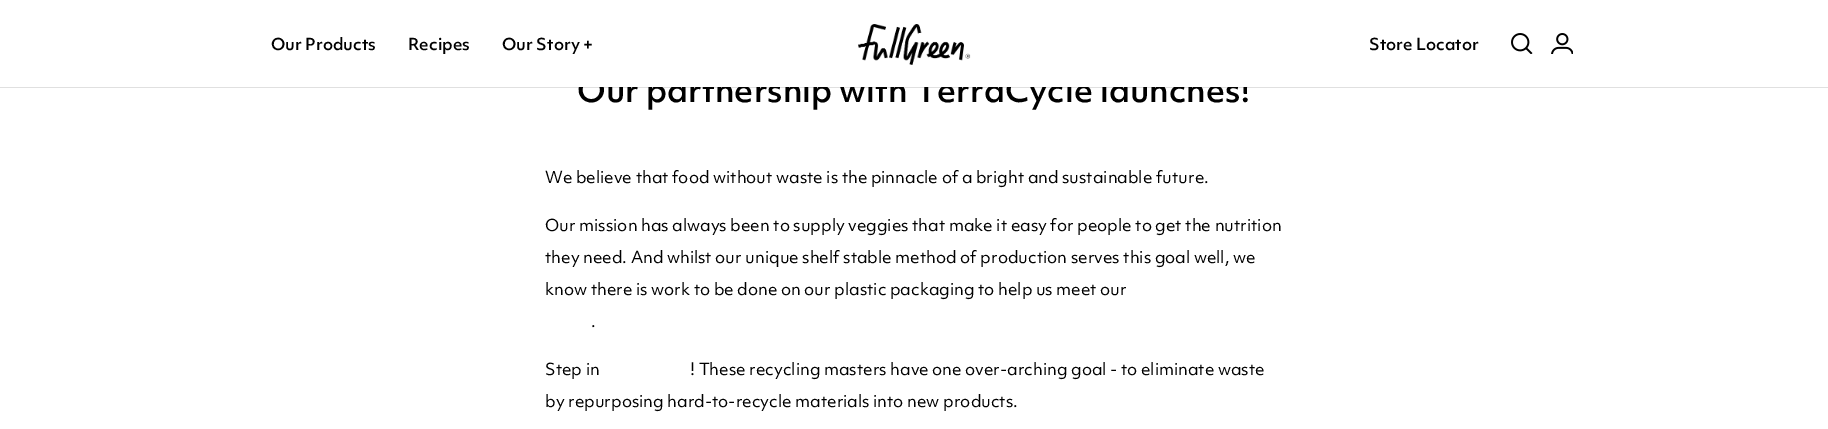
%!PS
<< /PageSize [1828 429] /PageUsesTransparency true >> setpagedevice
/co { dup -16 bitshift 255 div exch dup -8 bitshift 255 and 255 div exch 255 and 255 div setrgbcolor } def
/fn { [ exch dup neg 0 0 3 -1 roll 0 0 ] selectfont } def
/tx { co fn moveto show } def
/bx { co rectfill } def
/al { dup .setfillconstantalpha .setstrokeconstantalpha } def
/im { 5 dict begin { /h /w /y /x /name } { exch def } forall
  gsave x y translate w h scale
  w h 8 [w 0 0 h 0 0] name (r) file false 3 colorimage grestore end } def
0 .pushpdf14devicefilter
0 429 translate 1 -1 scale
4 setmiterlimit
0 0 1828 429 16#FFFFFF bx
0.12 al
0 87 1828 1 16#000000 bx
1 al
(media/1.raw) 858 24 113 41 im
(media/2.raw) 1511 33 22 21 im
(media/3.raw) 1551 33 22 21 im
(Our Products) 271 50 /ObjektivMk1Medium-Medium 16 16#000000 tx
(Recipes) 408 50 /ObjektivMk1Medium-Medium 16 16#000000 tx
(Our Story +) 502 50 /ObjektivMk1Medium-Medium 16 16#000000 tx
(Store Locator) 1369 50 /ObjektivMk1Medium-Medium 16 16#000000 tx
(Our partnership with TerraCycle launches!) 577 102 /ObjektivMk1Medium-Medium 32 16#000000 tx
579 76 669 11 16#FFFFFF bx
(We believe that food without waste is the pinnacle of a bright and sustainable future.) 545 183 /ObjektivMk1-Regular 16 16#000000 tx
(Our mission has always been to supply veggies that make it easy for people to get the nutrition) 545 231 /ObjektivMk1-Regular 16 16#000000 tx
(they need. And whilst our unique shelf stable method of production serves this goal well, we) 545 263 /ObjektivMk1-Regular 16 16#000000 tx
(know there is work to be done on our plastic packaging to help us meet our) 545 295 /ObjektivMk1-Regular 16 16#000000 tx
(.) 591 327 /ObjektivMk1-Regular 16 16#000000 tx
(Step in) 545 375 /ObjektivMk1-Regular 16 16#000000 tx
(! These recycling masters have one over-arching goal - to eliminate waste) 690 375 /ObjektivMk1-Regular 16 16#000000 tx
(by repurposing hard-to-recycle materials into new products.) 545 407 /ObjektivMk1-Regular 16 16#000000 tx
.poppdf14devicefilter showpage
